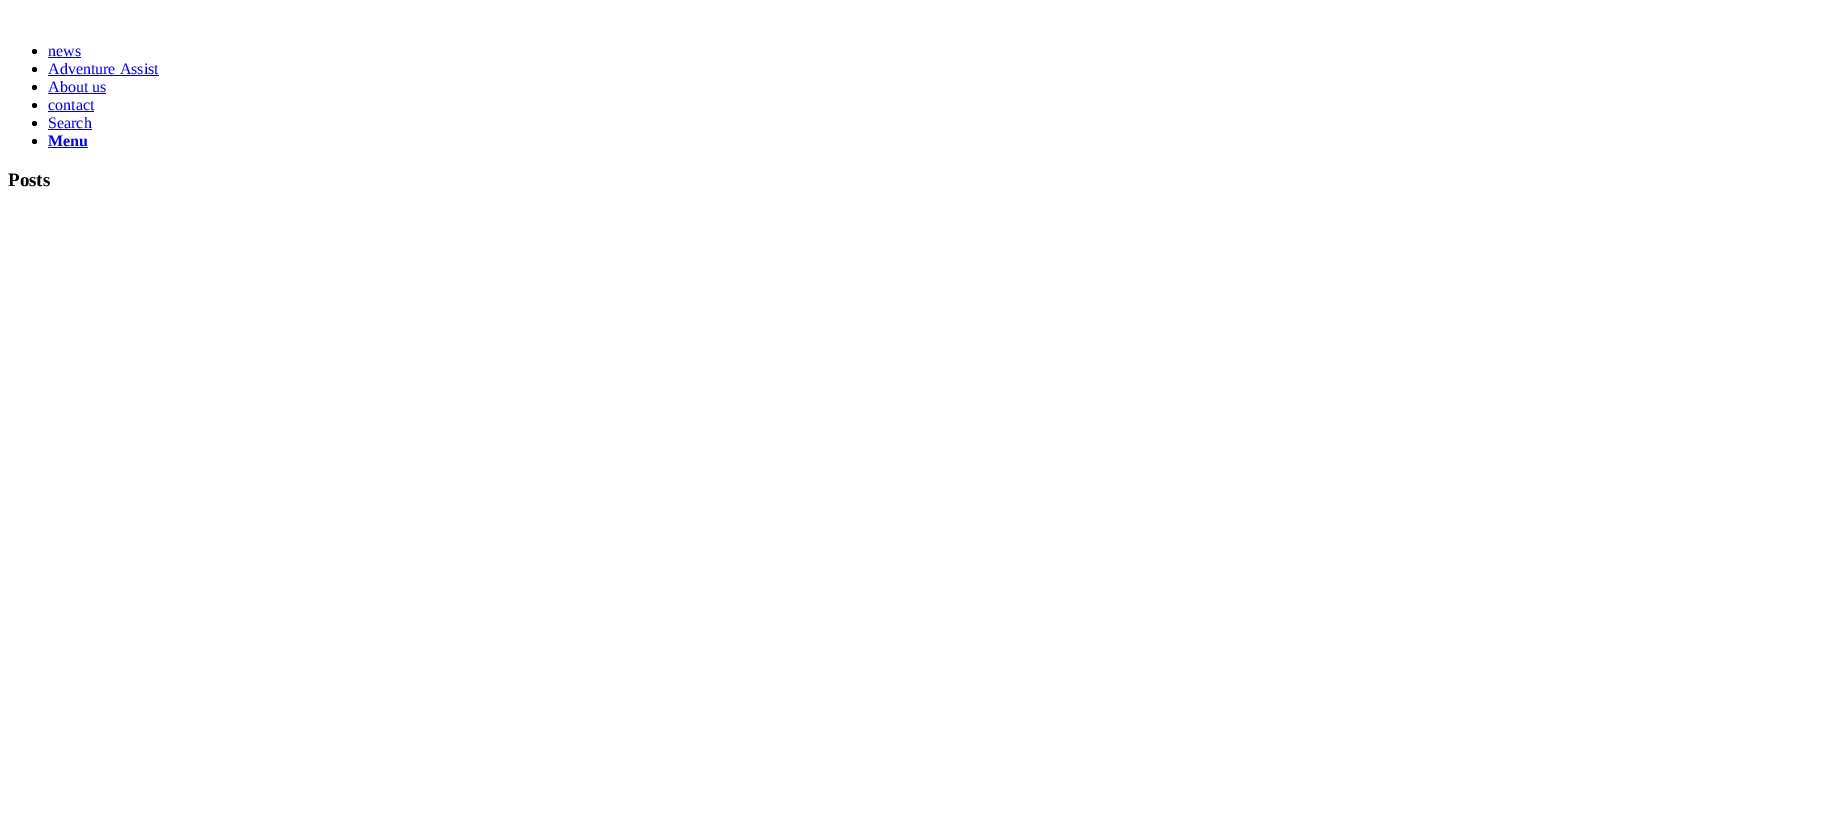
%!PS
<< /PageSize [1824 840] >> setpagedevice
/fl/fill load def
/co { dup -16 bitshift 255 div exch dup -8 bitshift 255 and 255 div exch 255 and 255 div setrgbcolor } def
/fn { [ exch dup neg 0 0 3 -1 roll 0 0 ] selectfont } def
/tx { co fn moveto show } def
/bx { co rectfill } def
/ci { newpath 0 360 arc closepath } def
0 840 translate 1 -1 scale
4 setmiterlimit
0 0 1824 840 16#FFFFFF bx
16#000000 co
34.5 51.5 2.5 ci fl
48 57 33 1 16#0000EE bx
16#000000 co
34.5 69.5 2.5 ci fl
48 75 111 1 16#0000EE bx
16#000000 co
34.5 87.5 2.5 ci fl
48 93 58 1 16#0000EE bx
16#000000 co
34.5 105.5 2.5 ci fl
48 111 46 1 16#0000EE bx
16#000000 co
34.5 123.5 2.5 ci fl
48 129 44 1 16#0000EE bx
16#000000 co
34.5 141.5 2.5 ci fl
48 147 40 1 16#0000EE bx
(news) 48 56 /LiberationSerif-Regular 16 16#0000EE tx
(Adventure Assist) 48 74 /LiberationSerif-Regular 16 16#0000EE tx
(About us) 48 92 /LiberationSerif-Regular 16 16#0000EE tx
(contact) 48 110 /LiberationSerif-Regular 16 16#0000EE tx
(Search) 48 128 /LiberationSerif-Regular 16 16#0000EE tx
(Menu) 48 146 /LiberationSerif-Bold 16 16#0000EE tx
(Posts) 8 186 /LiberationSerif-Bold 19 16#000000 tx
showpage
